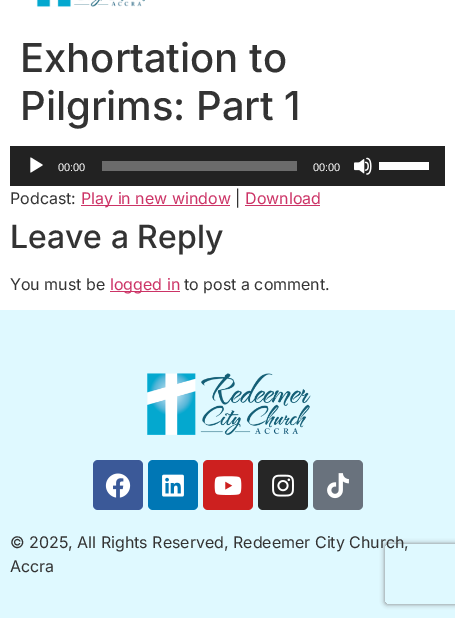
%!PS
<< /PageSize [455 618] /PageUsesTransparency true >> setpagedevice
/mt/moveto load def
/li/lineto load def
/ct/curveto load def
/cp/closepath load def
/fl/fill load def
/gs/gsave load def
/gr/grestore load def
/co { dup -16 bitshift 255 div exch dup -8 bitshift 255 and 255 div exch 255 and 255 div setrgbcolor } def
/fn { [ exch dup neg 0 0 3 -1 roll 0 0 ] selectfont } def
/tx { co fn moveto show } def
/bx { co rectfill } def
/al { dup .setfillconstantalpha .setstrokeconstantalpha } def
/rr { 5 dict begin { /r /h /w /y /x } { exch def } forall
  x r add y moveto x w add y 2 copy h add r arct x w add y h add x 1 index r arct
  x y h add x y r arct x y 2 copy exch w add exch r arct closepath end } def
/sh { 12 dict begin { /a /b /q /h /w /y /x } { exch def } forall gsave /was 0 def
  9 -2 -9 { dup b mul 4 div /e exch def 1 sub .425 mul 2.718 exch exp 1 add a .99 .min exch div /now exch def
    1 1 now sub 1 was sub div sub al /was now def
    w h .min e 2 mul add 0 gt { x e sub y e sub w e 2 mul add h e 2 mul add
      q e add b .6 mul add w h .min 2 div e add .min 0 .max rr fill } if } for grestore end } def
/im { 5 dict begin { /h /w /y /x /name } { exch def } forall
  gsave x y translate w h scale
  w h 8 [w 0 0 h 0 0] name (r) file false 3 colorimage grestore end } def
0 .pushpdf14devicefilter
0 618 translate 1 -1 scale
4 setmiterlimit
0 0 455 618 16#FFFFFF bx
(media/1.raw) 36 0 109 7 im
10 146 435 40 16#222222 bx
(media/2.raw) 30 157 13 16 im
102 161 195 10 16#6B6B6B bx
(media/3.raw) 354 157 18 18 im
379 162 50 8 16#FFFFFF bx
81 205 149 1 16#CC3366 bx
245 205 75 1 16#CC3366 bx
110 291 70 1 16#CC3366 bx
0 310 455 308 16#DFF9FF bx
(media/4.raw) 147 373 164 62 im
16#3B5998 co
93 460 50 50 5 rr fl
(media/5.raw) 105 473 26 25 im
16#0077B5 co
148 460 50 50 5 rr fl
(media/6.raw) 162 474 22 23 im
16#CD201F co
203 460 50 50 5 rr fl
(media/7.raw) 214 476 28 19 im
16#262626 co
258 460 50 50 5 rr fl
(media/8.raw) 272 474 22 23 im
16#69727D co
313 460 50 50 5 rr fl
(media/9.raw) 327 473 22 26 im
gs
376 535 mt 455 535 li 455 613 li 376 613 li cp 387 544 mt 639 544 li 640 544 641 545 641 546 ct 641 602 li 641 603 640 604 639 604 ct 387 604 li 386 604 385 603 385 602 ct 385 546 li 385 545 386 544 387 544 ct cp eoclip newpath
16#808080 co
385 544 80 60 2 2.5 1 sh
gr
(Exhortation to) 20 72 /Inter-Medium 40 16#333333 tx
(Pilgrims: Part 1) 20 120 /Inter-Medium 40 16#333333 tx
(00:00) 58 171 /LiberationSans-Regular 11 16#FFFFFF tx
(00:00) 313 171 /LiberationSans-Regular 11 16#FFFFFF tx
(Podcast:) 10 204 /Inter-Regular 16 16#333333 tx
(Play in new window) 81 204 /Inter-Regular 16 16#CC3366 tx
(|) 235 204 /Inter-Regular 16 16#333333 tx
(Download) 245 204 /Inter-Regular 16 16#CC3366 tx
(Leave a Reply) 10 248 /Inter-Medium 32 16#333333 tx
(You must be) 10 290 /Inter-Regular 16 16#333333 tx
(logged in) 110 290 /Inter-Regular 16 16#CC3366 tx
(to post a comment.) 184 290 /Inter-Regular 16 16#333333 tx
(© 2025, All Rights Reserved, Redeemer City Church,) 10 548 /Inter-Regular 16 16#333333 tx
(Accra) 10 572 /Inter-Regular 16 16#333333 tx
.poppdf14devicefilter showpage
